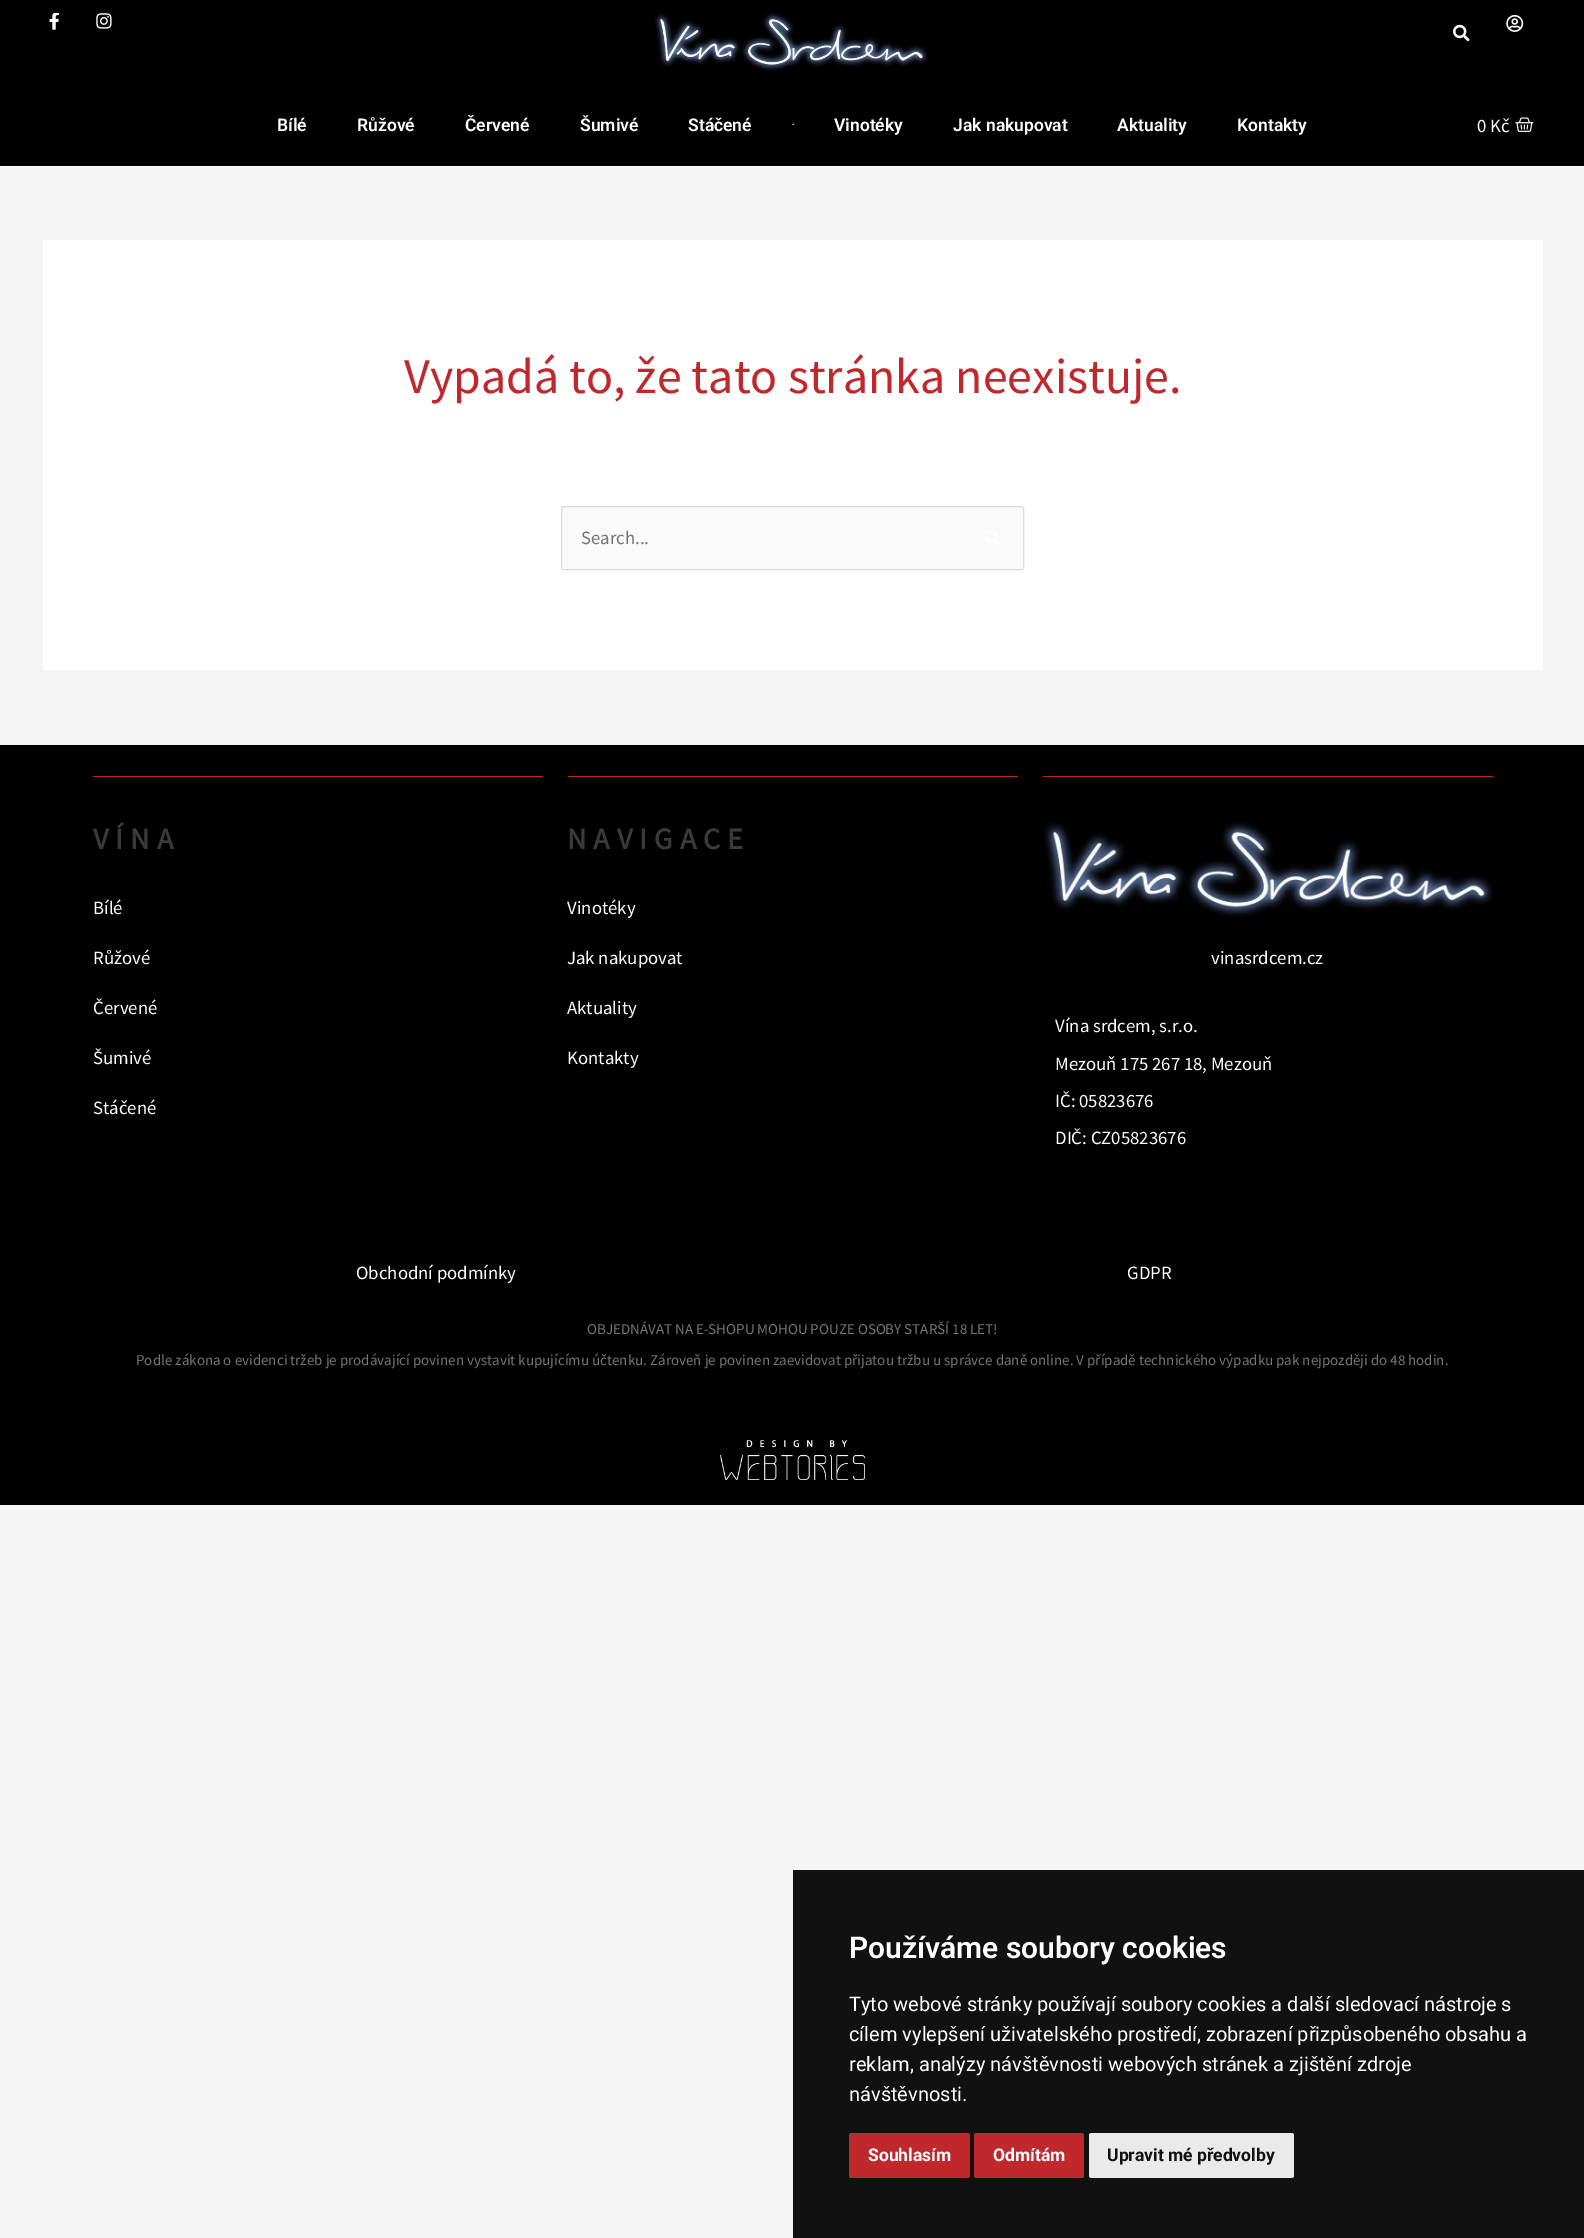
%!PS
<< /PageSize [1584 2238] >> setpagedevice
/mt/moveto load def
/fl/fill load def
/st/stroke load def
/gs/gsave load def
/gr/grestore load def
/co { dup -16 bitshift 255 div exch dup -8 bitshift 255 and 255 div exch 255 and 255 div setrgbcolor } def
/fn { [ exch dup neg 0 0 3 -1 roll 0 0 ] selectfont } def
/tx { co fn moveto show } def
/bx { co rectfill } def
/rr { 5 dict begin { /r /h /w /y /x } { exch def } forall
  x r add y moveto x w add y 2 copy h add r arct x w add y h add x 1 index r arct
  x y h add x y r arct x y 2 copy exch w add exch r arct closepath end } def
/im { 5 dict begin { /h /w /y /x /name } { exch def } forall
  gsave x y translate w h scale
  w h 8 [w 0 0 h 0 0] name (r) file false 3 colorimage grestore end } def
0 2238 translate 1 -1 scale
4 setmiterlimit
0 0 1584 2238 16#F5F5F5 bx
0 0 1584 166 16#000000 bx
(media/1.raw) 49 13 10 17 im
(media/2.raw) 96 13 16 16 im
(media/3.raw) 654 13 274 58 im
(media/4.raw) 1453 24 17 18 im
(media/5.raw) 1506 15 18 17 im
0 166 1584 1 16#FFFFFF bx
(media/6.raw) 792 123 2 2 im
(media/7.raw) 1515 117 19 15 im
43 240 1500 430 16#FFFFFF bx
16#FAFAFA co
561.5 506.5 462 63 2 rr gs fl gr
16#DDDDDD co
st
(media/8.raw) 986 531 15 15 im
0 745 1584 760 16#000000 bx
93 776 450 1 16#C1282D bx
568 776 450 1 16#C1282D bx
1043 776 450 1 16#C1282D bx
(media/9.raw) 1043 822 450 95 im
(media/10.raw) 720 1440 145 40 im
793 1870 791 368 16#111111 bx
16#C1282D co
849 2133 121 45 2.5 rr fl
974 2133 110 45 2.5 rr fl
16#EAEAEA co
1089 2133 205 45 2.5 rr fl
(Bílé) 277 131 /Roboto-SemiBold 17.5 16#FFFFFF tx
(Růžové) 357 131 /Roboto-SemiBold 17.5 16#FFFFFF tx
(Červené) 465 131 /Roboto-SemiBold 17.5 16#FFFFFF tx
(Šumivé) 580 131 /Roboto-SemiBold 17.5 16#FFFFFF tx
(Stáčené) 688 131 /Roboto-SemiBold 17.5 16#FFFFFF tx
(Vinotéky) 834 131 /Roboto-SemiBold 17.5 16#FFFFFF tx
(Jak nakupovat) 953 131 /Roboto-SemiBold 17.5 16#FFFFFF tx
(Aktuality) 1117 131 /Roboto-SemiBold 17.5 16#FFFFFF tx
(Kontakty) 1237 131 /Roboto-SemiBold 17.5 16#FFFFFF tx
(0 Kč) 1477 132 /SourceSansPro-Regular 18.75 16#FFFFFF tx
(Vypadá to, že tato stránka neexistuje.) 404 393 /SourceSansPro-Regular 50 16#C1282D tx
(Search...) 581 544 /SourceSansPro-Regular 18.75 16#757575 tx
/SourceSansPro-Bold 30 fn
16#3A3A3A co
93 849 mt 7 0 (VÍNA) ashow
(Bílé) 93 914 /SourceSansPro-Regular 18.75 16#FFFFFF tx
(Růžové) 93 964 /SourceSansPro-Regular 18.75 16#FFFFFF tx
(Červené) 93 1014 /SourceSansPro-Regular 18.75 16#FFFFFF tx
(Šumivé) 93 1064 /SourceSansPro-Regular 18.75 16#FFFFFF tx
(Stáčené) 93 1114 /SourceSansPro-Regular 18.75 16#FFFFFF tx
/SourceSansPro-Bold 30 fn
16#3A3A3A co
567 849 mt 7 0 (NAVIGACE) ashow
(Vinotéky) 567 914 /SourceSansPro-Regular 18.75 16#FFFFFF tx
(Jak nakupovat) 567 964 /SourceSansPro-Regular 18.75 16#FFFFFF tx
(Aktuality) 567 1014 /SourceSansPro-Regular 18.75 16#FFFFFF tx
(Kontakty) 567 1064 /SourceSansPro-Regular 18.75 16#FFFFFF tx
(vinasrdcem.cz) 1211 964 /SourceSansPro-Regular 18.75 16#FFFFFF tx
(Vína srdcem, s.r.o.) 1055 1032 /SourceSansPro-Regular 18.75 16#FFFFFF tx
(Mezouň 175 267 18, Mezouň) 1055 1070 /SourceSansPro-Regular 18.75 16#FFFFFF tx
(IČ: 05823676) 1055 1107 /SourceSansPro-Regular 18.75 16#FFFFFF tx
(DIČ: CZ05823676) 1055 1144 /SourceSansPro-Regular 18.75 16#FFFFFF tx
(Obchodní podmínky) 356 1279 /SourceSansPro-Regular 18.75 16#FFFFFF tx
(GDPR) 1127 1279 /SourceSansPro-Regular 18.75 16#FFFFFF tx
(OBJEDNÁVAT NA E-SHOPU MOHOU POUZE OSOBY STARŠÍ 18 LET!) 587 1334 /SourceSansPro-Regular 15 16#757575 tx
(Podle zákona o evidenci tržeb je prodávající povinen vystavit kupujícímu účtenku. Zároveň je povinen zaevidovat přijatou tržbu u správce daně online. V případě technického výpadku pak nejpozději do 48 hodin.) 136 1365 /SourceSansPro-Regular 15 16#757575 tx
(Používáme soubory cookies) 849 1958 /Roboto-SemiBold 30 16#FFFFFF tx
(Tyto webové stránky používají soubory cookies a další sledovací nástroje s) 849 2011 /Roboto-Regular 20 16#FFFFFF tx
(cílem vylepšení uživatelského prostředí, zobrazení přizpůsobeného obsahu a) 849 2041 /Roboto-Regular 20 16#FFFFFF tx
(reklam, analýzy návštěvnosti webových stránek a zjištění zdroje) 849 2071 /Roboto-Regular 20 16#FFFFFF tx
(návštěvnosti.) 849 2101 /Roboto-Regular 20 16#FFFFFF tx
(Souhlasím) 868 2161 /Roboto-Bold 17.5 16#FFFFFF tx
(Odmítám) 993 2161 /Roboto-Bold 17.5 16#FFFFFF tx
(Upravit mé předvolby) 1107 2161 /Roboto-Bold 17.5 16#111111 tx
showpage
